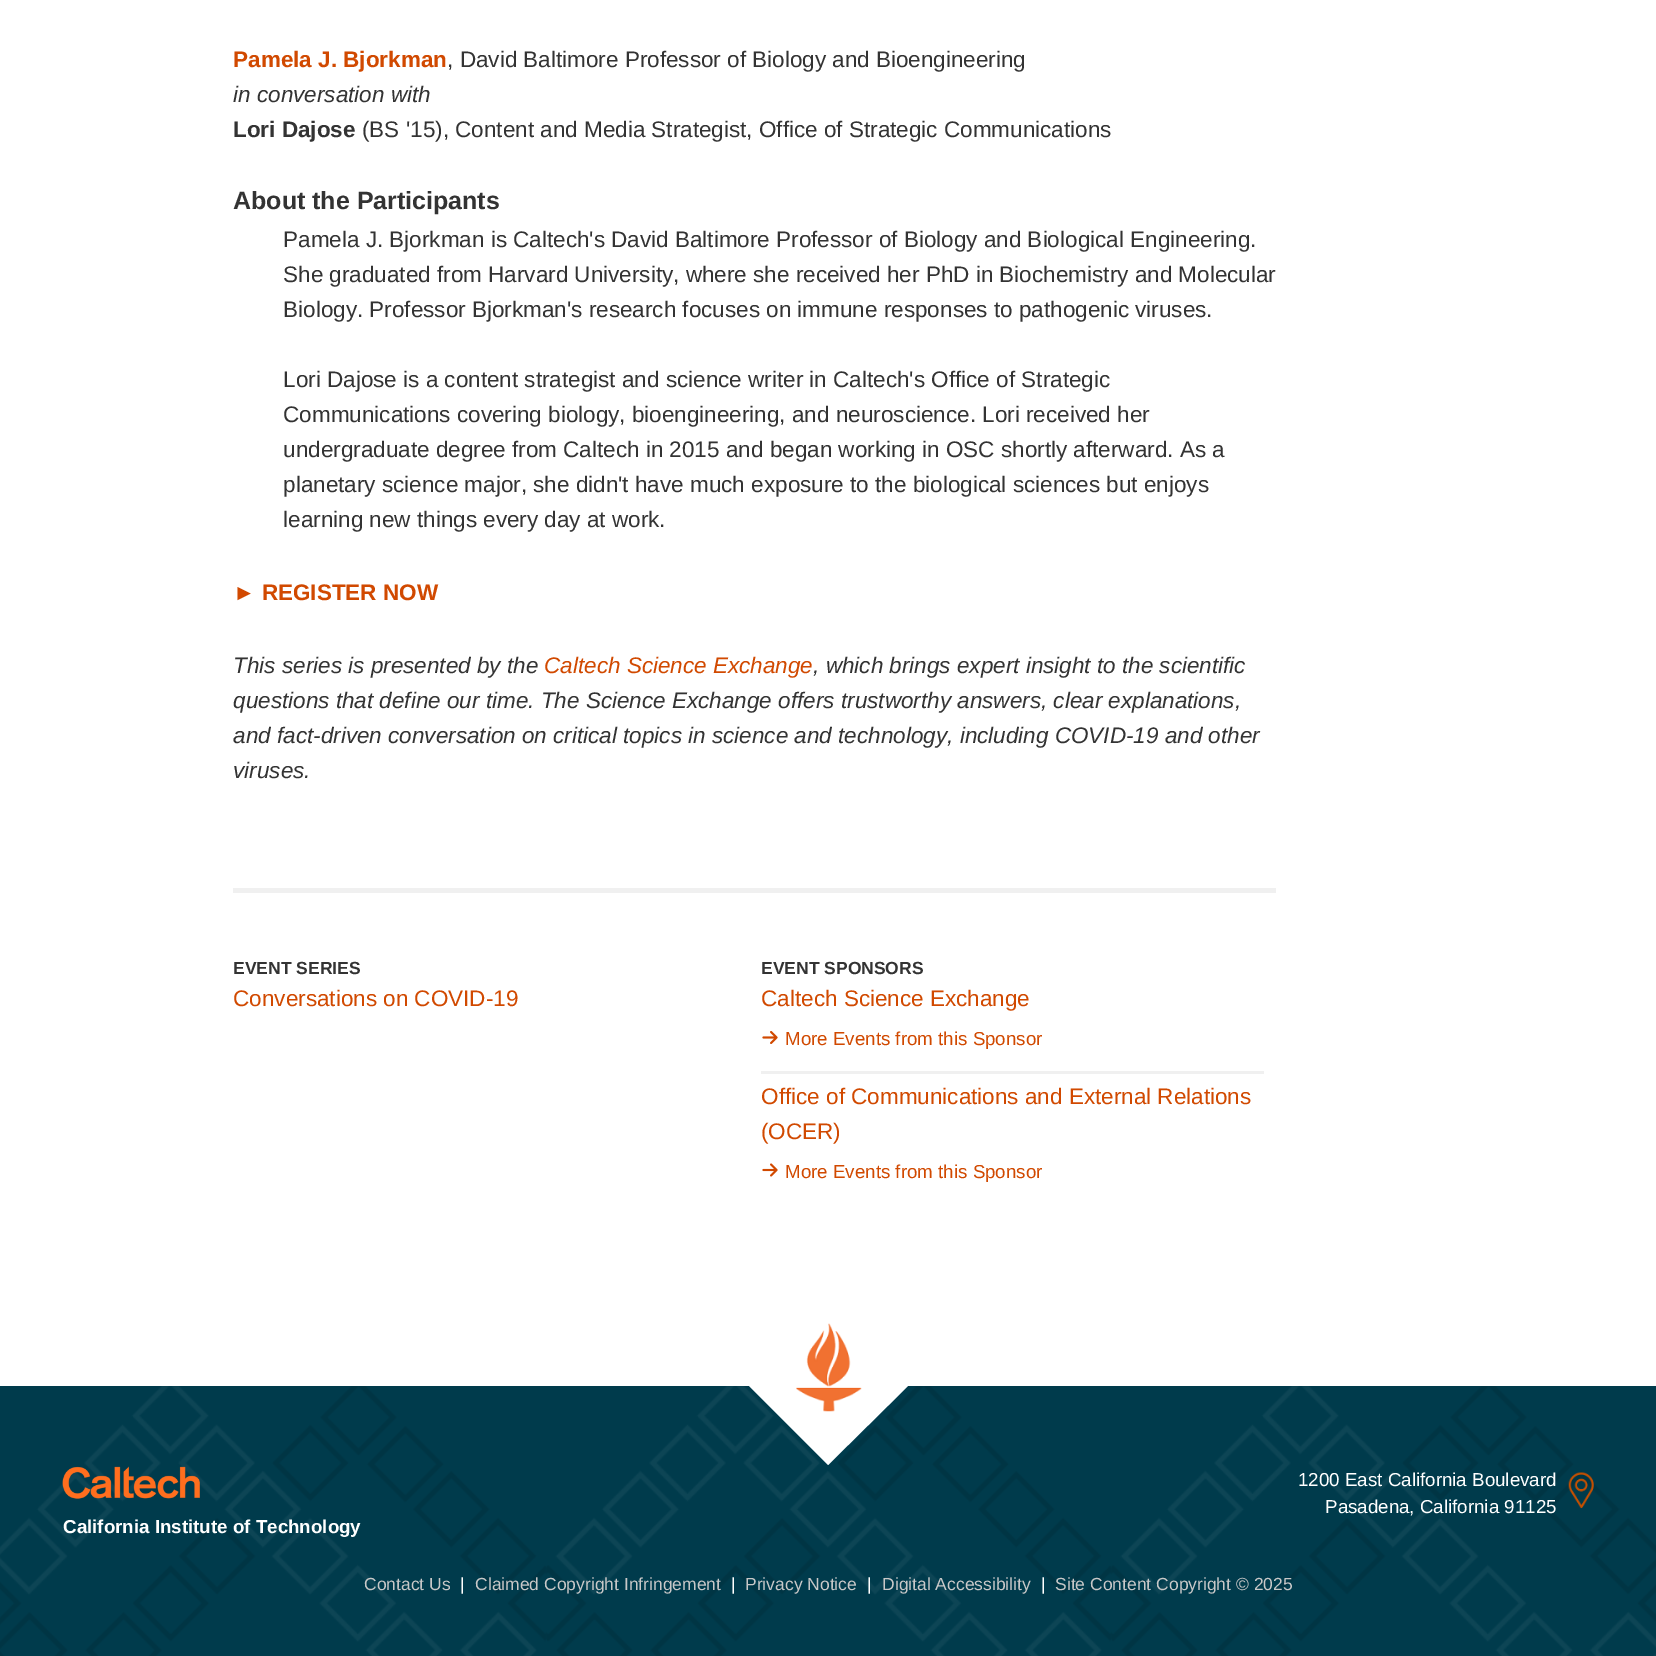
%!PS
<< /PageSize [1656 1656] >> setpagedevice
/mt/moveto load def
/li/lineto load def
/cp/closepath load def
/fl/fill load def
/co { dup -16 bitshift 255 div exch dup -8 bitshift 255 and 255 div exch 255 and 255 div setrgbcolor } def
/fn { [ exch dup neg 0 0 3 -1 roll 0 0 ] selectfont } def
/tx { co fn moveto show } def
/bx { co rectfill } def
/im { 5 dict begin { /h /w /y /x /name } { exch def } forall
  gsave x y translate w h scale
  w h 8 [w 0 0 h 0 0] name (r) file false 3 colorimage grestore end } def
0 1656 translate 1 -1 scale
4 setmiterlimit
0 0 1656 1656 16#FFFFFF bx
233 888 1043 5 16#F0F0F0 bx
761 1071 503 3 16#F0F0F0 bx
(media/1.raw) 762 1031 16 13 im
(media/2.raw) 762 1163 16 14 im
0 1386 1656 270 16#003B4C bx
(media/3.raw) 0 1386 1656 270 im
16#FFFFFF co
828 1306 mt 908 1386 li 828 1465 li 749 1386 li cp fl
(media/4.raw) 796 1323 66 89 im
(media/5.raw) 1568 1472 26 37 im
(media/6.raw) 62 1466 138 33 im
(Pamela J. Bjorkman) 233 67 /LiberationSans-Bold 22.5 16#D14900 tx
(, David Baltimore Professor of Biology and Bioengineering) 447 67 /LiberationSans-Regular 22.5 16#333333 tx
(in conversation with) 233 102 /LiberationSans-Italic 22.5 16#333333 tx
(Lori Dajose) 233 137 /LiberationSans-Bold 22.5 16#333333 tx
(\(BS '15\), Content and Media Strategist, Office of Strategic Communications) 362 137 /LiberationSans-Regular 22.5 16#333333 tx
(About the Participants) 233 209 /LiberationSans-Bold 25 16#333333 tx
(Pamela J. Bjorkman is Caltech's David Baltimore Professor of Biology and Biological Engineering.) 283 247 /LiberationSans-Regular 22.5 16#333333 tx
(She graduated from Harvard University, where she received her PhD in Biochemistry and Molecular) 283 282 /LiberationSans-Regular 22.5 16#333333 tx
(Biology. Professor Bjorkman's research focuses on immune responses to pathogenic viruses.) 283 317 /LiberationSans-Regular 22.5 16#333333 tx
(Lori Dajose is a content strategist and science writer in Caltech's Office of Strategic) 283 387 /LiberationSans-Regular 22.5 16#333333 tx
(Communications covering biology, bioengineering, and neuroscience. Lori received her) 283 422 /LiberationSans-Regular 22.5 16#333333 tx
(undergraduate degree from Caltech in 2015 and began working in OSC shortly afterward. As a) 283 457 /LiberationSans-Regular 22.5 16#333333 tx
(planetary science major, she didn't have much exposure to the biological sciences but enjoys) 283 492 /LiberationSans-Regular 22.5 16#333333 tx
(learning new things every day at work.) 283 527 /LiberationSans-Regular 22.5 16#333333 tx
(► REGISTER NOW) 233 600 /LiberationSans-Bold 22.5 16#D14900 tx
(This series is presented by the) 233 673 /LiberationSans-Italic 22.5 16#333333 tx
(Caltech Science Exchange) 544 673 /LiberationSans-Italic 22.5 16#D14900 tx
(, which brings expert insight to the scientific) 813 673 /LiberationSans-Italic 22.5 16#333333 tx
(questions that define our time. The Science Exchange offers trustworthy answers, clear explanations,) 233 708 /LiberationSans-Italic 22.5 16#333333 tx
(and fact-driven conversation on critical topics in science and technology, including COVID-19 and other) 233 743 /LiberationSans-Italic 22.5 16#333333 tx
(viruses.) 233 778 /LiberationSans-Italic 22.5 16#333333 tx
(EVENT SERIES) 233 974 /LiberationSans-Bold 17.5 16#333333 tx
(Conversations on COVID-19) 233 1006 /LiberationSans-Regular 22.5 16#D14900 tx
(EVENT SPONSORS) 761 974 /LiberationSans-Bold 17.5 16#333333 tx
(Caltech Science Exchange) 761 1006 /LiberationSans-Regular 22.5 16#D14900 tx
(More Events from this Sponsor) 785 1045 /LiberationSans-Regular 18.75 16#D14900 tx
(Office of Communications and External Relations) 761 1104 /LiberationSans-Regular 22.5 16#D14900 tx
(\(OCER\)) 761 1139 /LiberationSans-Regular 22.5 16#D14900 tx
(More Events from this Sponsor) 785 1178 /LiberationSans-Regular 18.75 16#D14900 tx
(1200 East California Boulevard) 1298 1486 /LiberationSans-Regular 18.75 16#FFFFFF tx
(Pasadena, California 91125) 1325 1513 /LiberationSans-Regular 18.75 16#FFFFFF tx
(California Institute of Technology) 63 1533 /LiberationSans-Bold 18.75 16#FFFFFF tx
(Contact Us) 364 1590 /LiberationSans-Regular 17.5 16#C8C8C8 tx
(|) 460 1590 /LiberationSans-Regular 17.5 16#FFFFFF tx
(Claimed Copyright Infringement) 475 1590 /LiberationSans-Regular 17.5 16#C8C8C8 tx
(|) 731 1590 /LiberationSans-Regular 17.5 16#FFFFFF tx
(Privacy Notice) 745 1590 /LiberationSans-Regular 17.5 16#C8C8C8 tx
(|) 867 1590 /LiberationSans-Regular 17.5 16#FFFFFF tx
(Digital Accessibility) 882 1590 /LiberationSans-Regular 17.5 16#C8C8C8 tx
(|) 1041 1590 /LiberationSans-Regular 17.5 16#FFFFFF tx
(Site Content Copyright © 2025) 1055 1590 /LiberationSans-Regular 17.5 16#C8C8C8 tx
showpage
